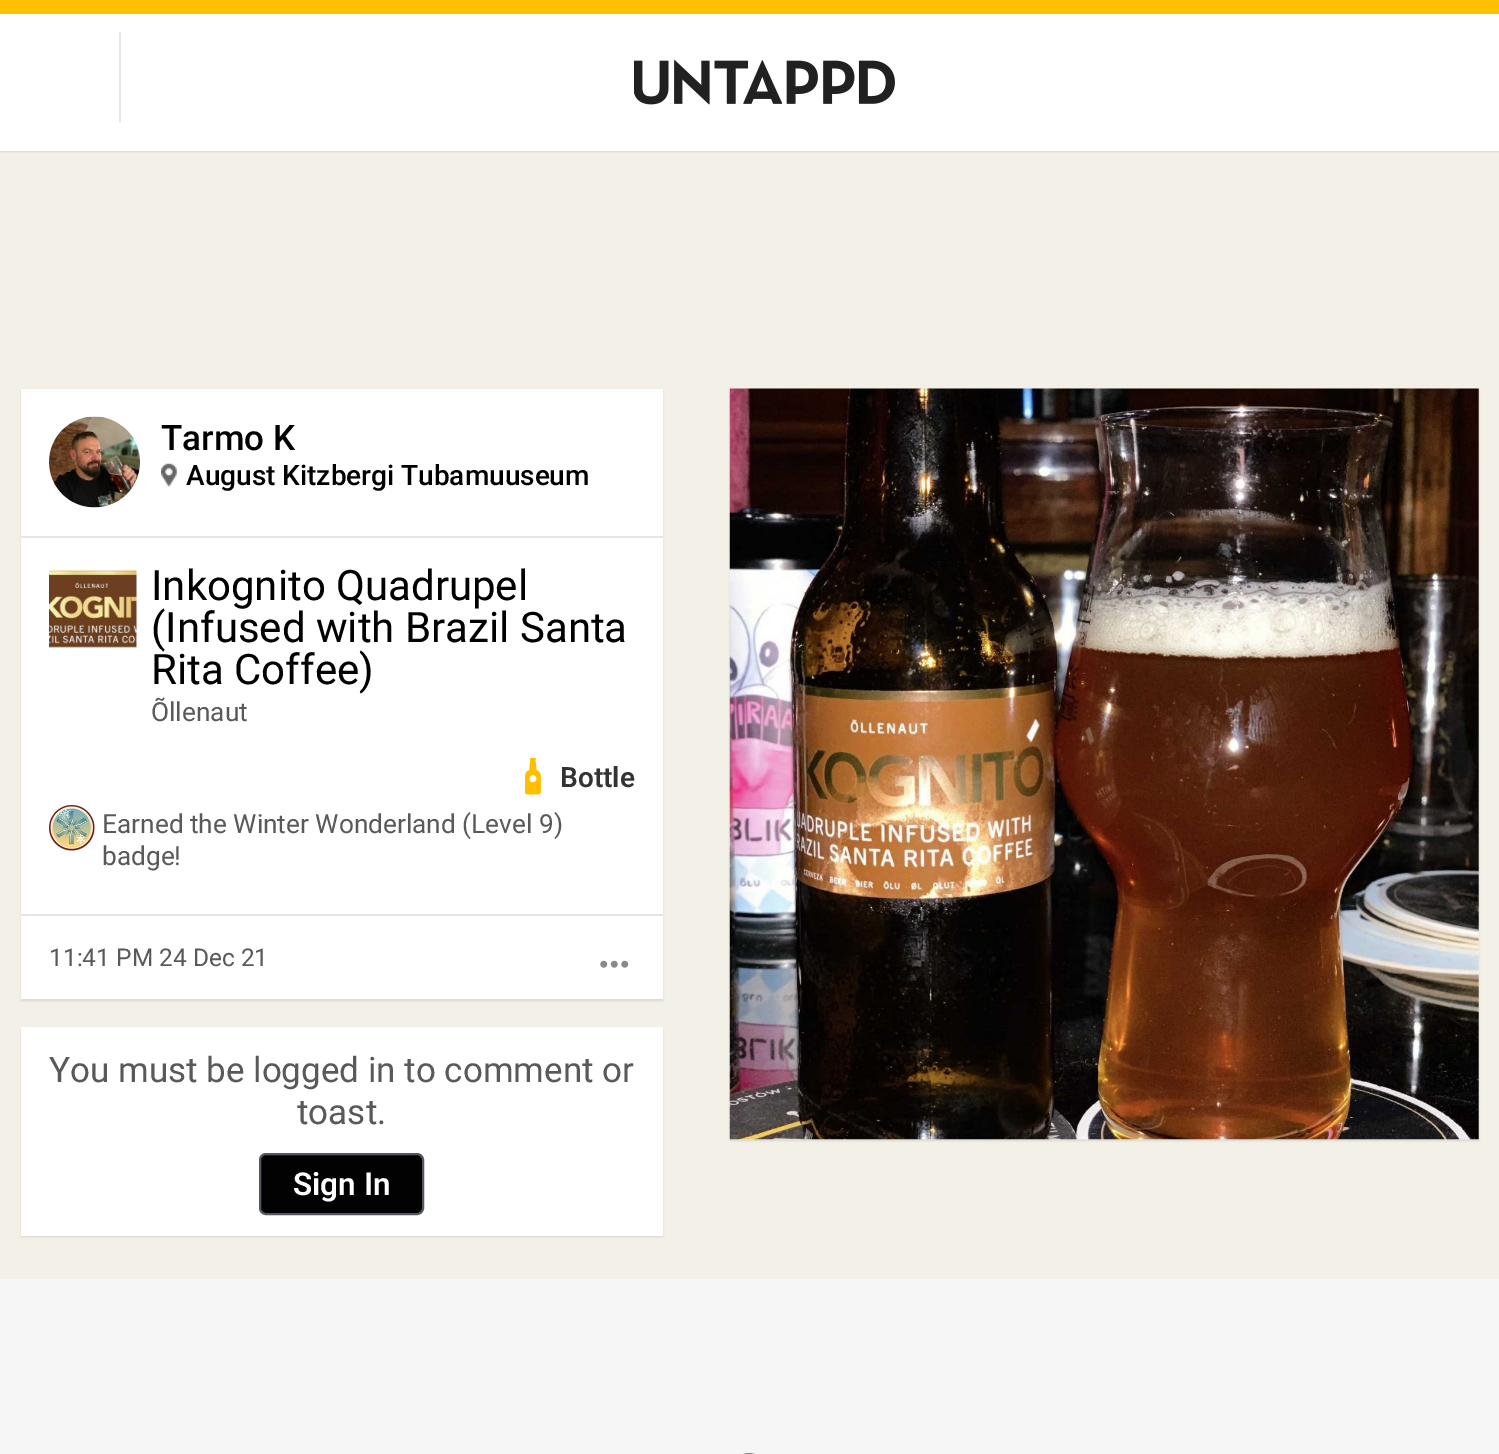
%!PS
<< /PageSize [1499 1454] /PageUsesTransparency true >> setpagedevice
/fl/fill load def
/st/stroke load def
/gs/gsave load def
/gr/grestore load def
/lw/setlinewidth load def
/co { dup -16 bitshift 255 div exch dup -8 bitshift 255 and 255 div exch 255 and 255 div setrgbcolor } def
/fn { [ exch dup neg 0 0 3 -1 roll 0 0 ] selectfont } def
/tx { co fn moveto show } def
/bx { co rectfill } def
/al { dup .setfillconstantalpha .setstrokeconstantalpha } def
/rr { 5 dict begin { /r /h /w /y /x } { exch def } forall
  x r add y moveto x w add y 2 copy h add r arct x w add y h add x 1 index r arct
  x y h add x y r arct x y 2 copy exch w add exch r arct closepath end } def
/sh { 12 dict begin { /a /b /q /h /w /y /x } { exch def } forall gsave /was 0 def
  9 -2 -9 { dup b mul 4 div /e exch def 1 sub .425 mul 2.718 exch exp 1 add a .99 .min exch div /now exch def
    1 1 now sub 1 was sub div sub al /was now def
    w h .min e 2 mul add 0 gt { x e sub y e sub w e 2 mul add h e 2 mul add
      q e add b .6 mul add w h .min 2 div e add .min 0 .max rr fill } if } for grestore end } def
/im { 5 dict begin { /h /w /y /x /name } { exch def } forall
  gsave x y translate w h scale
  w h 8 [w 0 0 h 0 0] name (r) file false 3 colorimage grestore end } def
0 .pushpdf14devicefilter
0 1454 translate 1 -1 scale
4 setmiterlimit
0 0 1499 1454 16#F3F0E8 bx
16#000000 co
0 2 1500 150 0 1 .1 sh
0 14 1499 137 16#FFFFFF bx
0 0 1499 14 16#FFC000 bx
119 32 2 91 16#E6E6E6 bx
(media/1.raw) 634 60 261 45 im
16#000000 co
21 390 642 611 0 1 .1 sh
21 389 642 610 16#FFFFFF bx
21 536 642 2 16#E6E6E6 bx
(media/2.raw) 49 416 91 92 im
(media/3.raw) 161 463 16 24 im
16#000000 co
730 390 749 751 0 1 .1 sh
(media/4.raw) 729 388 750 752 im
21 914 642 2 16#E6E6E6 bx
(media/5.raw) 49 570 88 78 im
(media/6.raw) 525 757 16 38 im
(media/7.raw) 49 805 46 46 im
(media/8.raw) 600 960 29 8 im
16#000000 co
21 1029 642 208 0 1 .1 sh
21 1027 642 209 16#FFFFFF bx
16#020202 co
260 1154 163 60 6 rr gs fl gr
16#545863 co
2 lw
st
0 1279 1499 175 16#F7F6F6 bx
16#888888 co
731 1454 36 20 18 rr st
(Tarmo K) 161 450 /Roboto-Medium 35 16#000000 tx
(August Kitzbergi Tubamuuseum) 186 485 /Roboto-Medium 28 16#000000 tx
(Inkognito Quadrupel) 151 600 /Roboto-Regular 42 16#000000 tx
(\(Infused with Brazil Santa) 151 642 /Roboto-Regular 42 16#000000 tx
(Rita Coffee\)) 151 684 /Roboto-Regular 42 16#000000 tx
(Õllenaut) 151 721 /Roboto-Regular 26.25 16#595959 tx
(Bottle) 560 787 /Roboto-SemiBold 28 16#333333 tx
(Earned the Winter Wonderland \(Level 9\)) 102 833 /Roboto-Regular 26.25 16#595959 tx
(badge!) 102 865 /Roboto-Regular 26.25 16#595959 tx
(11:41 PM 24 Dec 21) 49 966 /Roboto-Regular 24.5 16#595959 tx
(You must be logged in to comment or) 49 1082 /Roboto-Regular 35 16#595959 tx
(toast.) 297 1124 /Roboto-Regular 35 16#595959 tx
(Sign In) 293 1195 /Roboto-SemiBold 31.5 16#FFFFFF tx
.poppdf14devicefilter showpage
